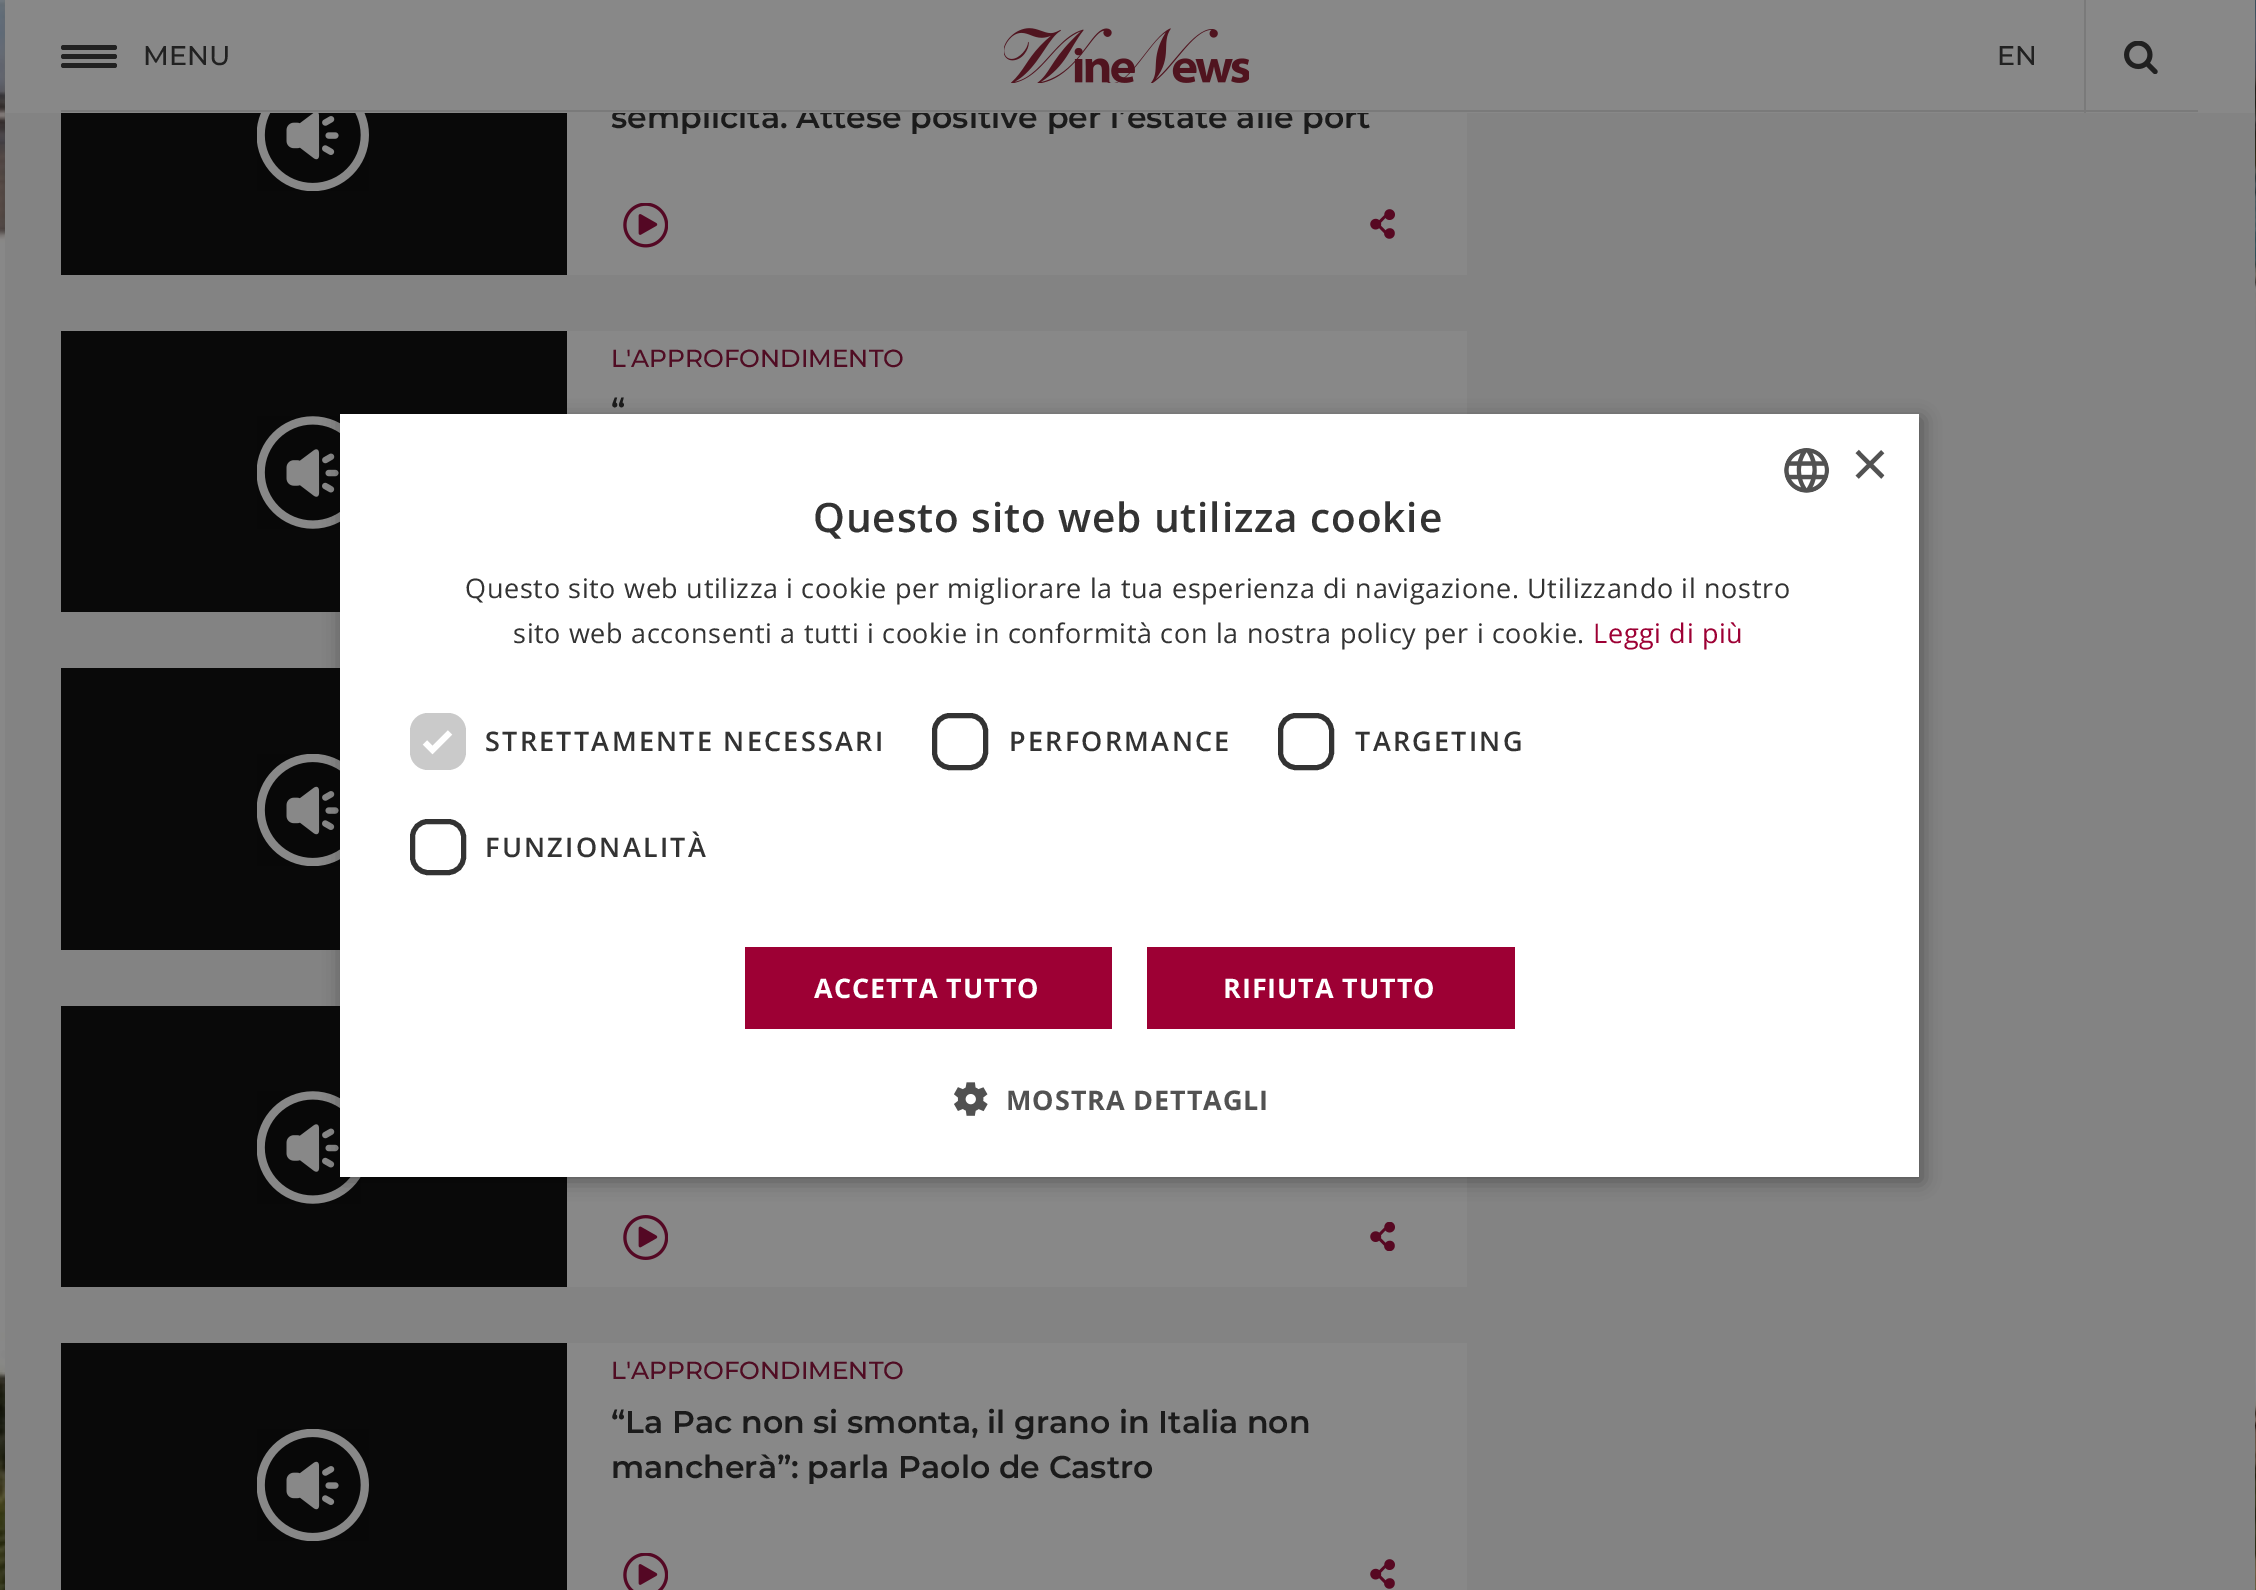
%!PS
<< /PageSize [2256 1590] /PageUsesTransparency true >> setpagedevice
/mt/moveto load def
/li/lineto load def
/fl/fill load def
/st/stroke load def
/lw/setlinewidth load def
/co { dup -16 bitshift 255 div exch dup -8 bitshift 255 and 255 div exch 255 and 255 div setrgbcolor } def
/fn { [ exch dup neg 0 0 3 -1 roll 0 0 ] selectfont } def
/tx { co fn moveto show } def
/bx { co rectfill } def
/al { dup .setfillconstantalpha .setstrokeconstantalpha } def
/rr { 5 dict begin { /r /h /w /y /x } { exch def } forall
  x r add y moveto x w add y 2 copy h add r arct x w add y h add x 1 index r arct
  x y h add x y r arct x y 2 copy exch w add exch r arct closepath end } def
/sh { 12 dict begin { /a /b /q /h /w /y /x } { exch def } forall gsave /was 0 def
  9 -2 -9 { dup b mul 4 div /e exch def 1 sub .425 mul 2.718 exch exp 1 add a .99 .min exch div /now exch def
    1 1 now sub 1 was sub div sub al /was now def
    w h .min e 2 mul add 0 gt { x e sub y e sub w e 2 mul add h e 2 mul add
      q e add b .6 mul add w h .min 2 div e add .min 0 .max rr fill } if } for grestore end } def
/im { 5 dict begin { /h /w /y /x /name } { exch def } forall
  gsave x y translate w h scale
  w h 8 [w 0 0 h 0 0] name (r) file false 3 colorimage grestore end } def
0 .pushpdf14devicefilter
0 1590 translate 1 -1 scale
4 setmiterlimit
0 0 2256 1590 16#FFFFFF bx
(media/1.raw) 0 0 2256 1590 im
5 113 2250 1477 16#838383 bx
567 113 900 162 16#888888 bx
61 113 506 162 16#090909 bx
(media/4.raw) 257 113 112 78 im
(media/5.raw) 623 203 45 45 im
(media/6.raw) 1370 209 25 30 im
567 331 900 83 16#888888 bx
61 331 506 281 16#090909 bx
(media/7.raw) 257 416 83 113 im
61 668 279 282 16#090909 bx
(media/8.raw) 257 754 83 112 im
567 1177 900 110 16#888888 bx
61 1006 506 281 16#090909 bx
(media/9.raw) 257 1091 104 113 im
(media/10.raw) 623 1215 45 45 im
(media/11.raw) 1370 1222 25 29 im
567 1343 900 247 16#888888 bx
61 1343 506 247 16#090909 bx
(media/12.raw) 257 1429 112 112 im
(media/13.raw) 623 1553 45 37 im
(media/6.raw) 1370 1559 25 30 im
16#000000 co
342 419 1580 762 0 9 .35 sh
340 414 1579 763 16#FFFFFF bx
(media/14.raw) 1784 448 45 45 im
16#CACACA co
410 713 56 57 18 rr fl
16#FFFFFF co
5.9 lw
425 742.5 mt 432.5 750 li 450 732.5 li st
16#333333 co
5 lw
934.5 715.5 51 52 15.5 rr st
1280.5 715.5 51 52 15.5 rr st
412.5 821.5 51 51 15.5 rr st
745 947 367 82 16#9D0034 bx
1147 947 368 82 16#9D0034 bx
(media/15.raw) 954 1082 34 34 im
(semplicità. Attese positive per l’estate alle port) 611 128 /Montserrat-SemiBold 31.5 16#1B1B1B tx
5 0 2250 113 16#888888 bx
(media/2.raw) 1004 28 245 55 im
16#212121 co
61 63 56 5 2.5 rr fl
61 45 56 5 2.5 rr fl
61 54 56 5 2.5 rr fl
(MENU) 143 65 /Montserrat-Medium 27 16#212121 tx
(media/3.raw) 2124 41 34 33 im
(EN) 1997 65 /Montserrat-Medium 27 16#212121 tx
61 110 2137 2 16#7A7A7A bx
2084 0 2 113 16#7A7A7A bx
(L'APPROFONDIMENTO) 611 367 /Montserrat-Medium 24.75 16#500C23 tx
(“) 611 421 /Montserrat-SemiBold 31.5 16#1B1B1B tx
(L'APPROFONDIMENTO) 611 1379 /Montserrat-Medium 24.75 16#500C23 tx
(“La Pac non si smonta, il grano in Italia non) 611 1433 /Montserrat-SemiBold 31.5 16#1B1B1B tx
(mancherà”: parla Paolo de Castro) 611 1478 /Montserrat-SemiBold 31.5 16#1B1B1B tx
(×) 1851 486 /LiberationSans-Regular 65 16#525252 tx
/OpenSans-SemiBold 40.5 fn
16#333333 co
813 532 mt .9 0 (Questo sito web utilizza cookie) ashow
/OpenSans-Regular 27 fn
465 598 mt .67 0 (Questo sito web utilizza i cookie per migliorare la tua esperienza di navigazione. Utilizzando il nostro) ashow
513 643 mt .67 0 (sito web acconsenti a tutti i cookie in conformità con la nostra policy per i cookie.) ashow
16#9D0034 co
1593 643 mt .67 0 (Leggi di più) ashow
/OpenSans-SemiBold 27 fn
16#333333 co
485 751 mt 2.25 0 (STRETTAMENTE NECESSARI) ashow
1009 751 mt 2.25 0 (PERFORMANCE) ashow
1355 751 mt 2.25 0 (TARGETING) ashow
485 857 mt 2.25 0 (FUNZIONALITÀ) ashow
/OpenSans-Bold 27 fn
16#FFFFFF co
814 998 mt .9 0 (ACCETTA TUTTO) ashow
1223 998 mt .9 0 (RIFIUTA TUTTO) ashow
16#525252 co
1006 1110 mt .9 0 (MOSTRA DETTAGLI) ashow
.poppdf14devicefilter showpage
